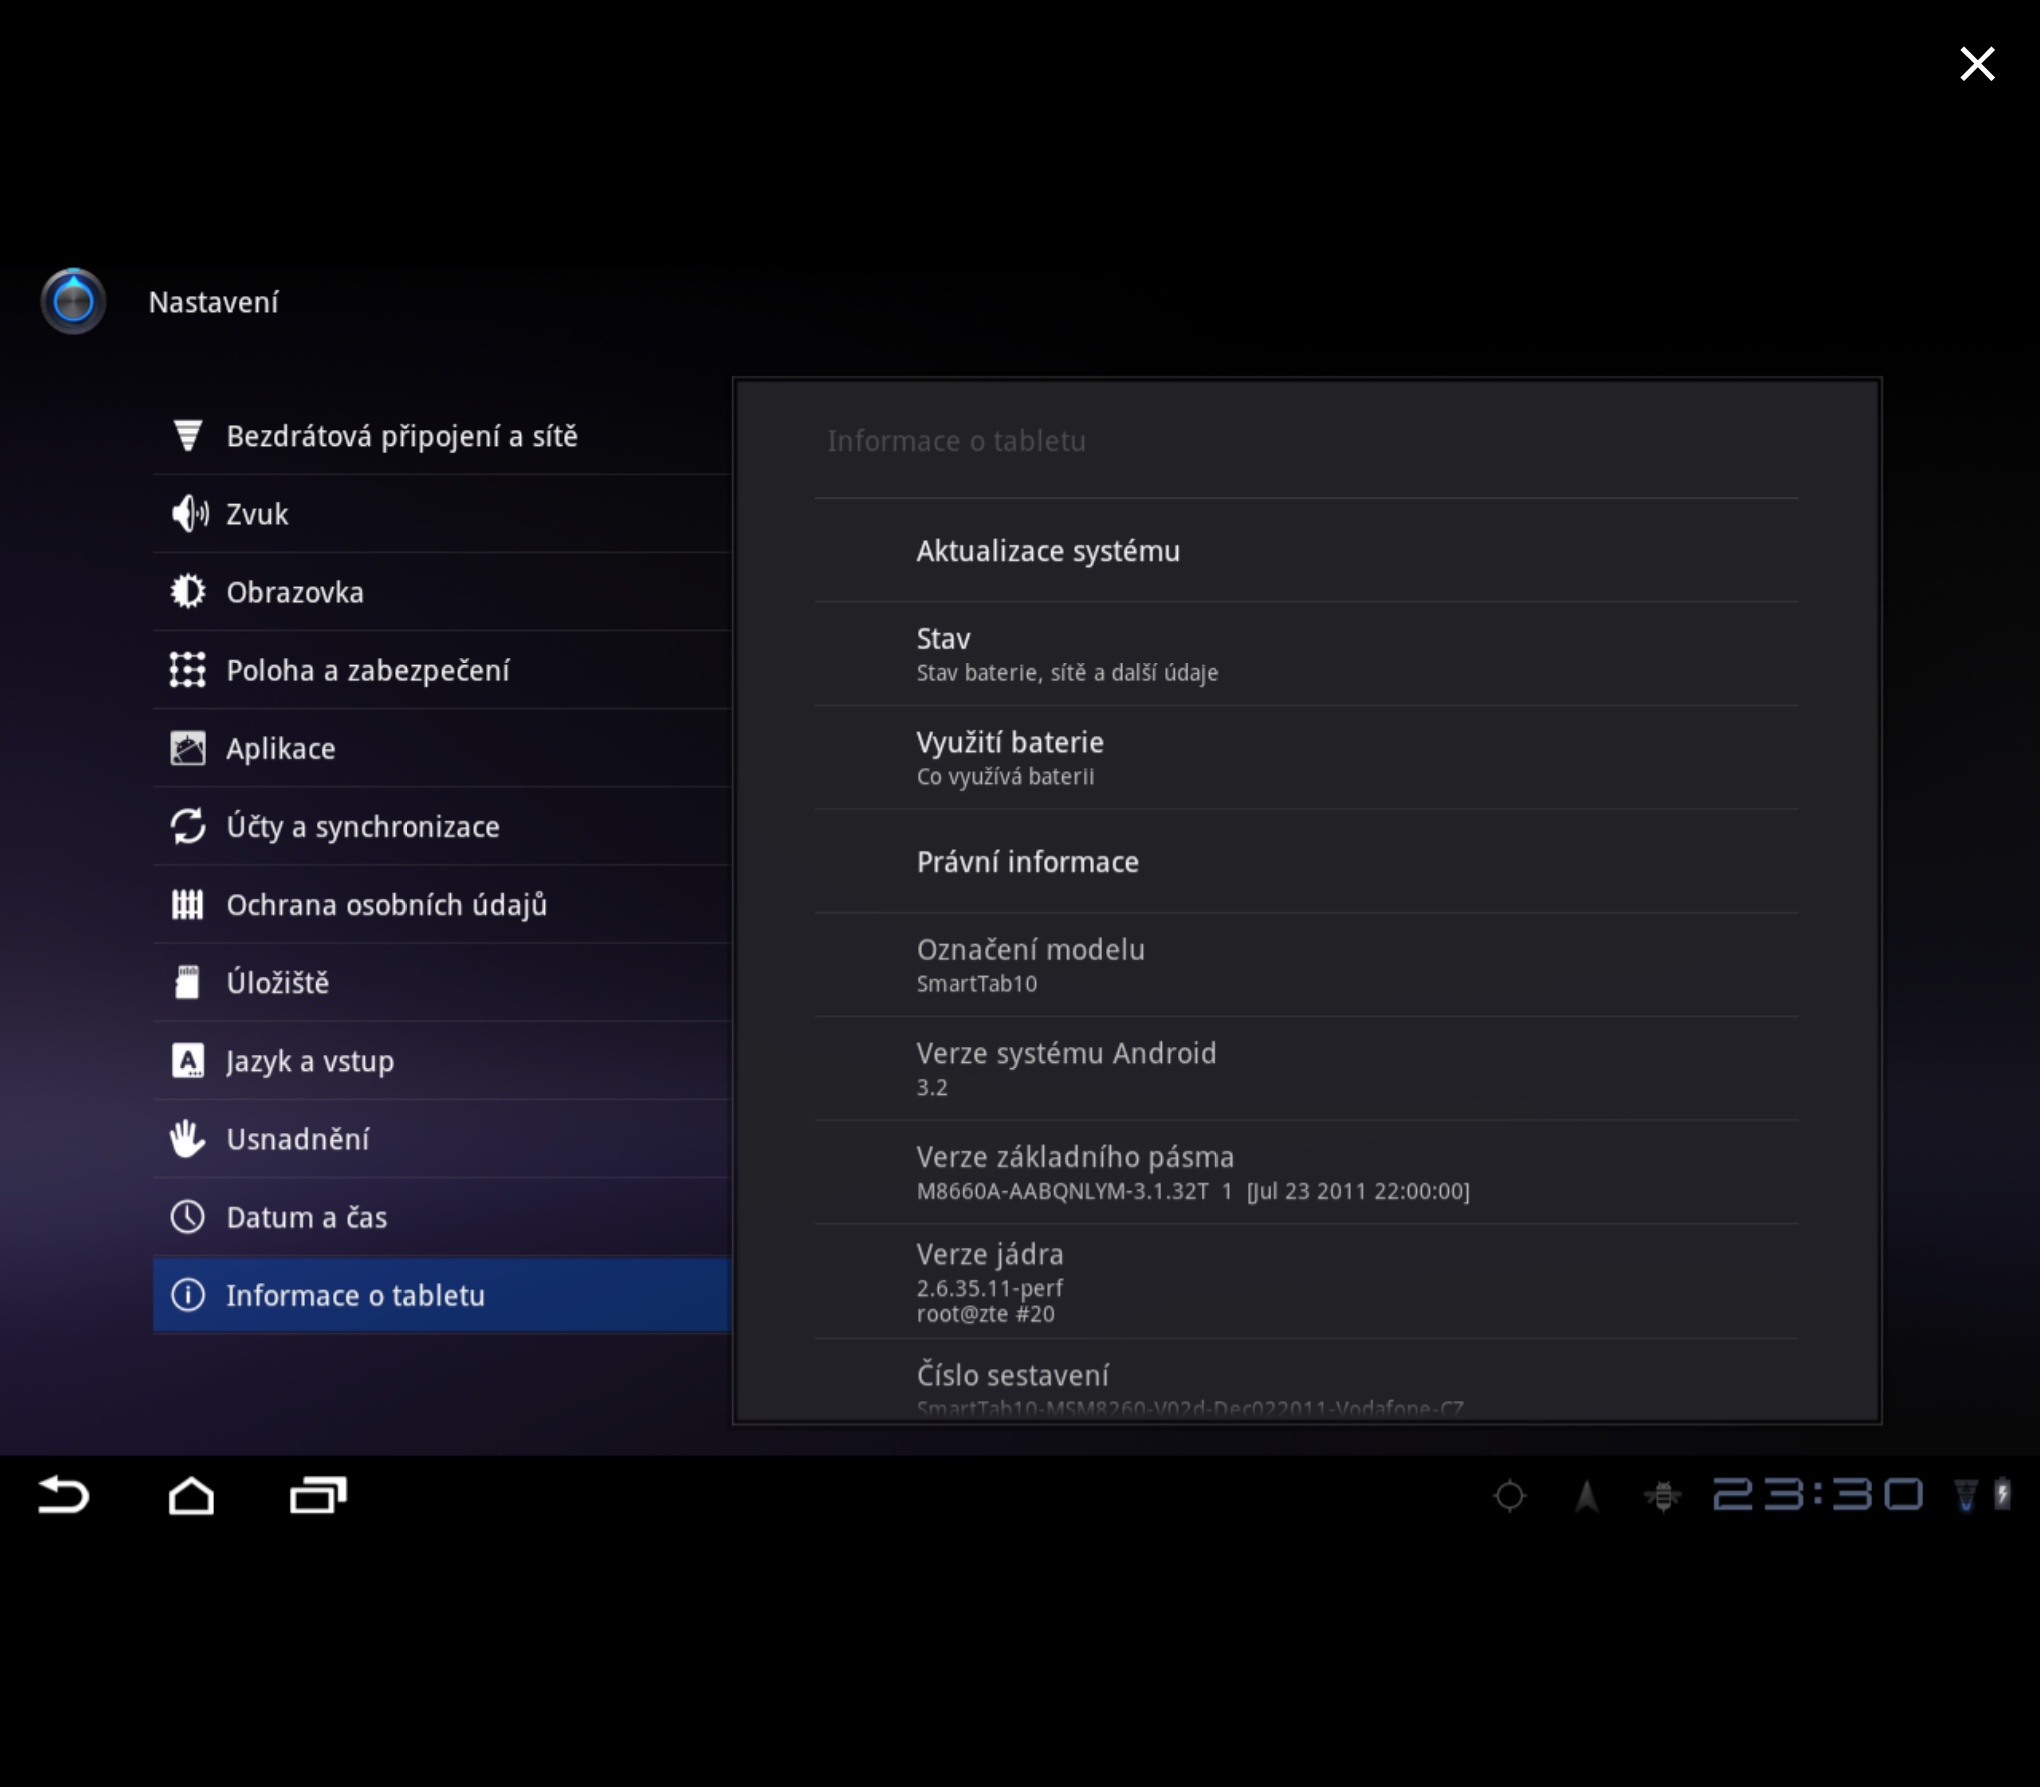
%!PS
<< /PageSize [2040 1787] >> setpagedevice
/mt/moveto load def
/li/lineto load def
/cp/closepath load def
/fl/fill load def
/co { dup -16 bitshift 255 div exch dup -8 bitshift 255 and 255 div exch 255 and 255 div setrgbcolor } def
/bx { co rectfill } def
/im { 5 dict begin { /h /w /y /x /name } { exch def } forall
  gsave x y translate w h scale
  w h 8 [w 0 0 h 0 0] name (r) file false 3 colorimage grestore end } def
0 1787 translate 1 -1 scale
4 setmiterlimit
0 0 2040 1787 16#000000 bx
16#FFFFFF co
1995 50 mt 1981 63.5 li 1995 77.5 li 1991.5 81 li 1978 67 li 1964 81 li 1960.5 77.5 li 1974.5 63.5 li 1960.5 50 li 1964 46.5 li 1978 60.5 li 1991.5 46.5 li cp fl
(media/1.raw) 0 267 2040 1250 im
showpage
